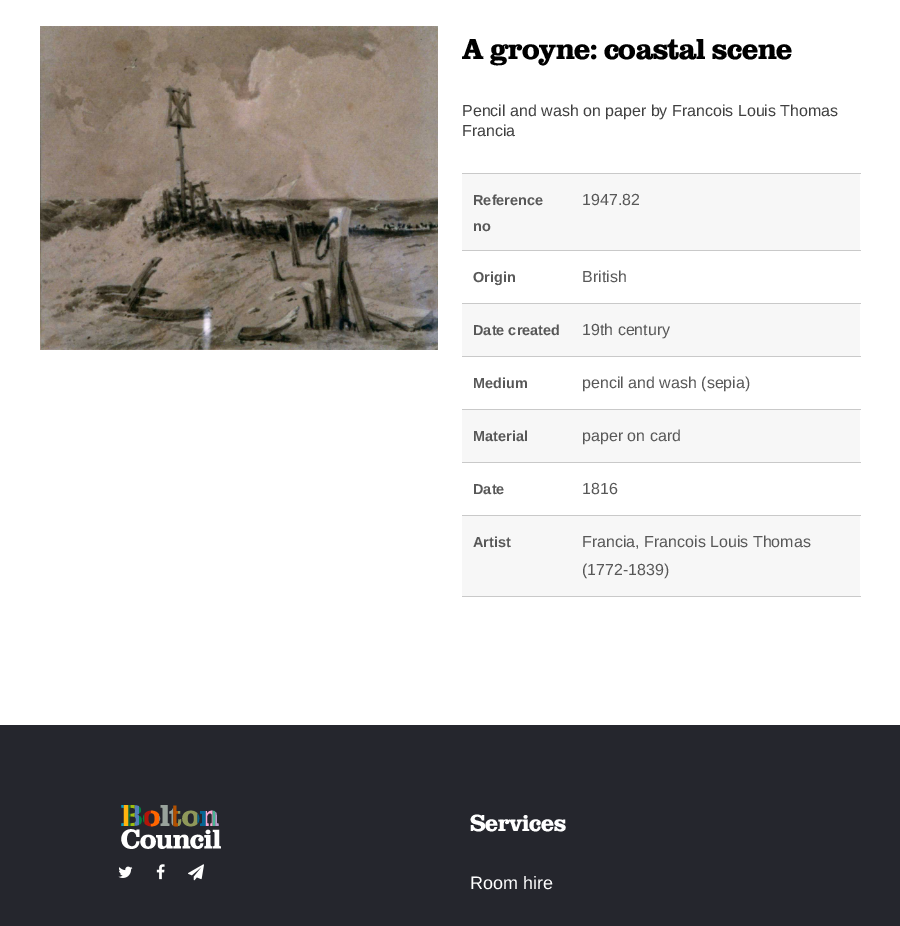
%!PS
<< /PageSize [900 926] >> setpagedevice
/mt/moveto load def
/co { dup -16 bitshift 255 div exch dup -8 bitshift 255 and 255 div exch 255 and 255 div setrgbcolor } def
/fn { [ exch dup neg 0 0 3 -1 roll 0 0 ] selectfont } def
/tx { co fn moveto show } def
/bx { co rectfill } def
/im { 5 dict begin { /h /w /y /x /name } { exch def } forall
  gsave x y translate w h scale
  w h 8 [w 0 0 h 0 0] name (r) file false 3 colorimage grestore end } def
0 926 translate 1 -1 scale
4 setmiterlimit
0 0 900 926 16#FFFFFF bx
(media/1.raw) 40 26 398 324 im
462 174 398 76 16#F7F7F7 bx
462 173 399 1 16#C9C9C9 bx
462 250 399 1 16#C9C9C9 bx
462 304 398 52 16#F7F7F7 bx
462 303 399 1 16#C9C9C9 bx
462 356 399 1 16#C9C9C9 bx
462 410 398 52 16#F7F7F7 bx
462 409 399 1 16#C9C9C9 bx
462 462 399 1 16#C9C9C9 bx
462 516 398 80 16#F7F7F7 bx
462 515 399 1 16#C9C9C9 bx
462 596 399 1 16#C9C9C9 bx
0 725 900 201 16#25262D bx
(media/2.raw) 121 805 100 44 im
(media/3.raw) 118 866 15 12 im
(media/4.raw) 156 864 9 16 im
(media/5.raw) 188 864 16 17 im
/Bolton-Regular 30 fn
16#000000 co
462 59 mt -.45 0 (A groyne: coastal scene) ashow
(Pencil and wash on paper by Francois Louis Thomas) 462 116 /LiberationSans-Regular 16 16#404040 tx
(Francia) 462 136 /LiberationSans-Regular 16 16#404040 tx
(Reference) 473 205 /LiberationSans-Bold 14.5 16#585858 tx
(no) 473 231 /LiberationSans-Bold 14.5 16#585858 tx
(1947.82) 582 205 /LiberationSans-Regular 16 16#585858 tx
(Origin) 473 282 /LiberationSans-Bold 14.5 16#585858 tx
(British) 582 282 /LiberationSans-Regular 16 16#585858 tx
(Date created) 473 335 /LiberationSans-Bold 14.5 16#585858 tx
(19th century) 582 335 /LiberationSans-Regular 16 16#585858 tx
(Medium) 473 388 /LiberationSans-Bold 14.5 16#585858 tx
(pencil and wash \(sepia\)) 582 388 /LiberationSans-Regular 16 16#585858 tx
(Material) 473 441 /LiberationSans-Bold 14.5 16#585858 tx
(paper on card) 582 441 /LiberationSans-Regular 16 16#585858 tx
(Date) 473 494 /LiberationSans-Bold 14.5 16#585858 tx
(1816) 582 494 /LiberationSans-Regular 16 16#585858 tx
(Artist) 473 547 /LiberationSans-Bold 14.5 16#585858 tx
(Francia, Francois Louis Thomas) 582 547 /LiberationSans-Regular 16 16#585858 tx
(\(1772-1839\)) 582 575 /LiberationSans-Regular 16 16#585858 tx
/Bolton-Regular 24 fn
16#FFFFFF co
470 831 mt -.25 0 (Services) ashow
(Room hire) 470 889 /LiberationSans-Regular 18 16#FFFFFF tx
showpage
